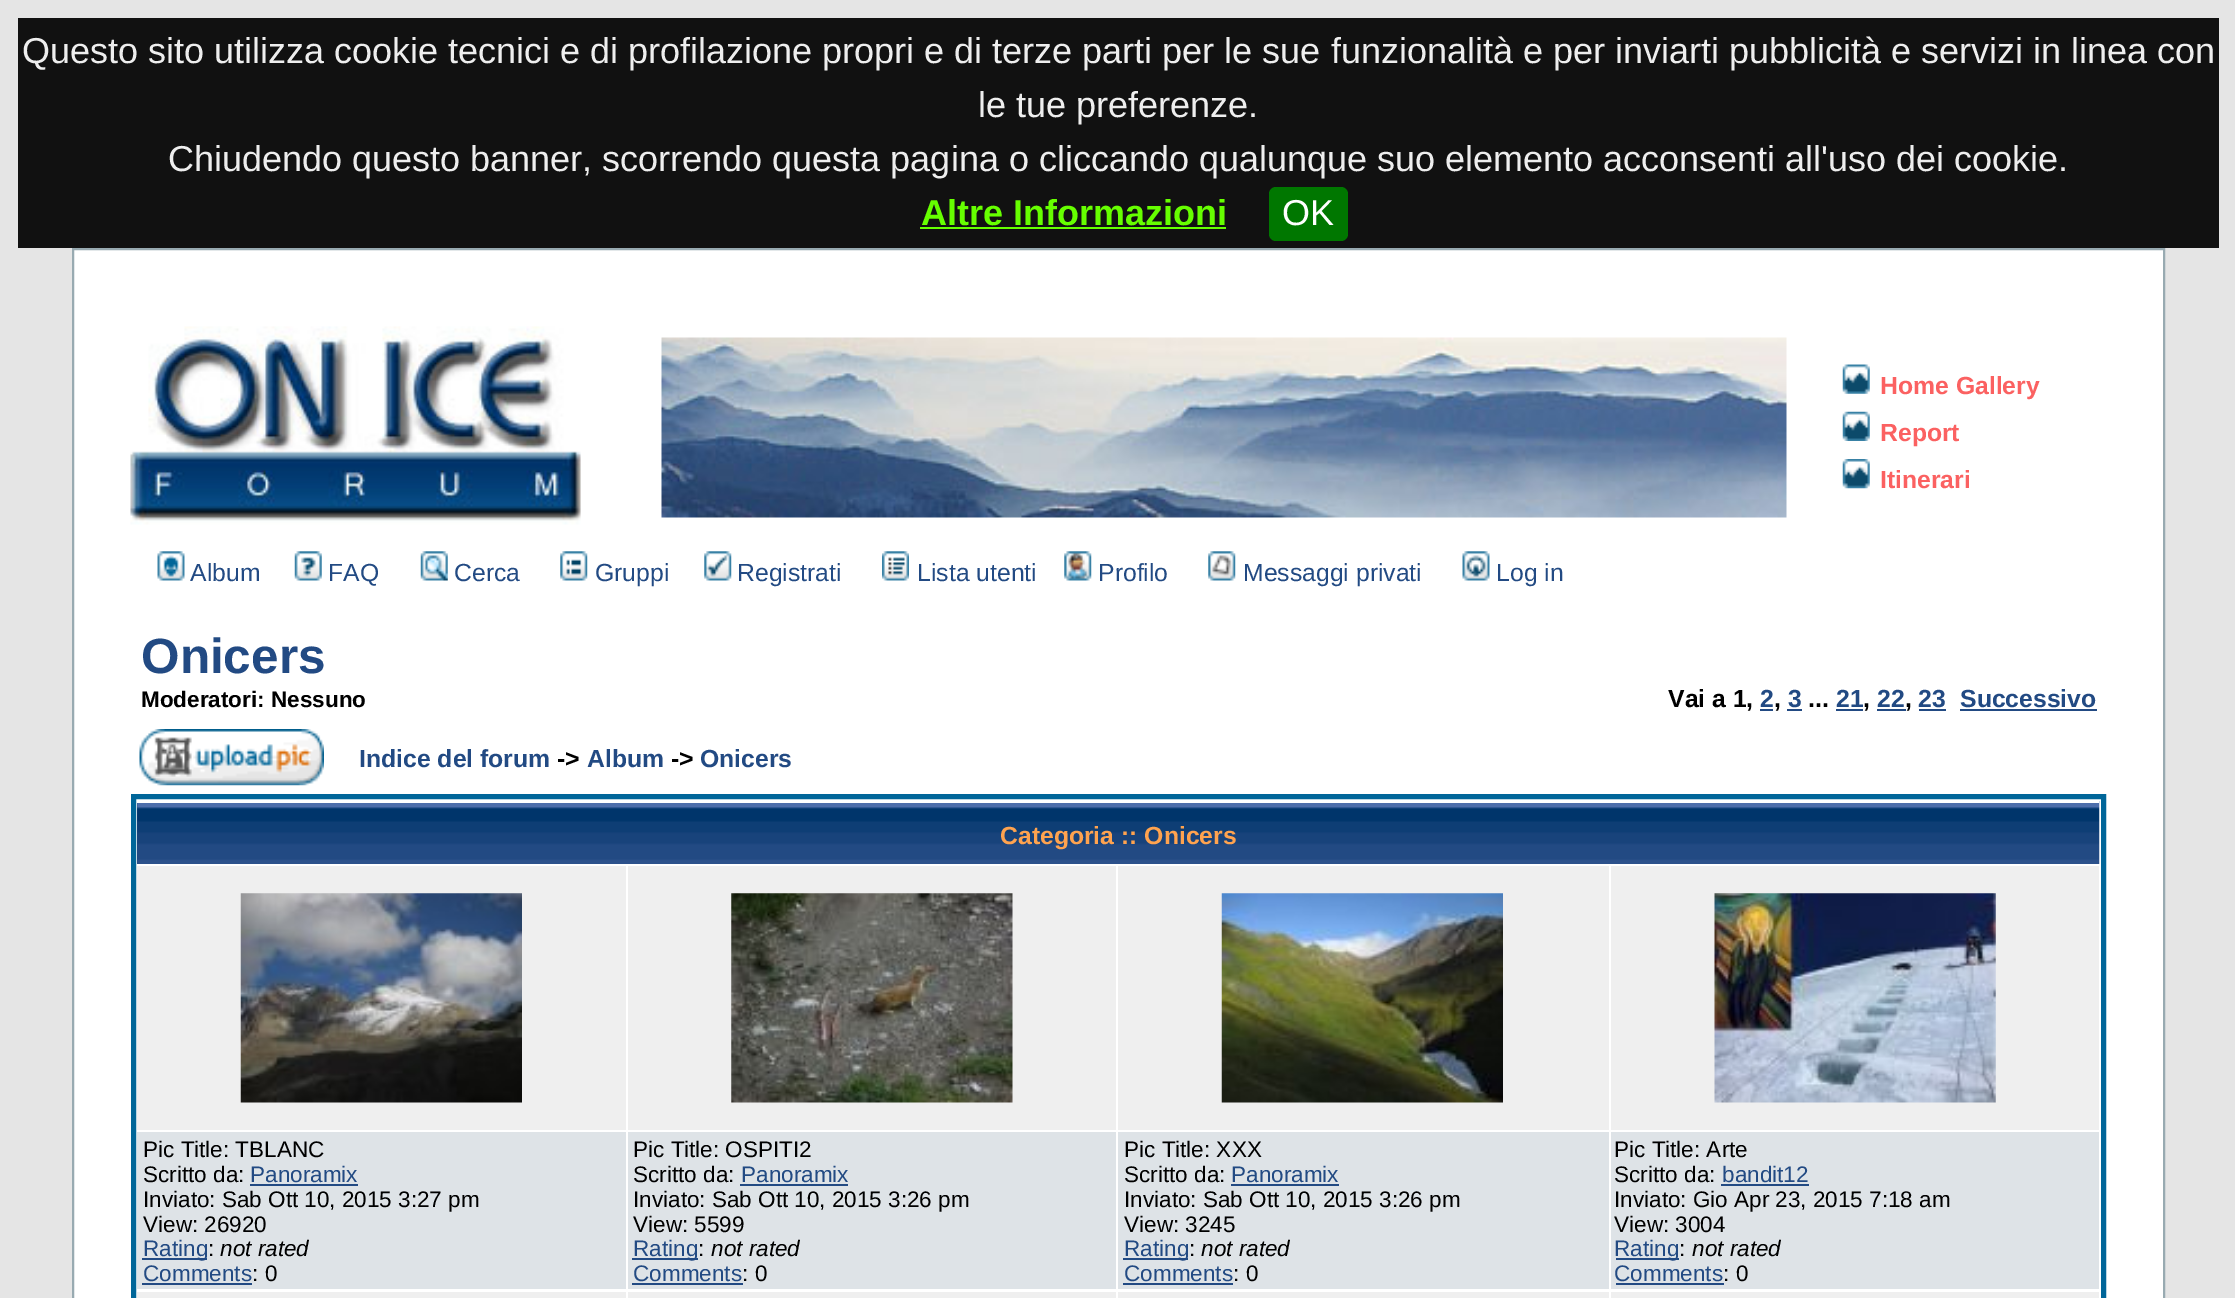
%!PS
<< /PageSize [2235 1298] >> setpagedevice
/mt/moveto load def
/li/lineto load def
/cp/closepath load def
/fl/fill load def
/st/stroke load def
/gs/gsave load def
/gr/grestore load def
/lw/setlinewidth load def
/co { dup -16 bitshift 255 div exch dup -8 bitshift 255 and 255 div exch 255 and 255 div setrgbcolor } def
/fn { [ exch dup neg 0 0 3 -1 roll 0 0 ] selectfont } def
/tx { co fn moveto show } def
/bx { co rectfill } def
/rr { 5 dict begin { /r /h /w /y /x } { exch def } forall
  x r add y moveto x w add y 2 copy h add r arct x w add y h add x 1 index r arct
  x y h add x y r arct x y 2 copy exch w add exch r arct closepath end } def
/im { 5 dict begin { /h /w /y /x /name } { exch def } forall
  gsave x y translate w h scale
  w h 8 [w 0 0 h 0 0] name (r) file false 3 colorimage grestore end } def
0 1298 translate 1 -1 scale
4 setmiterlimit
0 0 2235 1298 16#E5E5E5 bx
18 18 2201 230 16#111111 bx
920 227 306 2 16#66FF00 bx
16#007700 co
1269 187 79 54 7 rr fl
16#FFFFFF co
73 249 mt 2164 249 li 2164 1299 li 73 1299 li cp gs fl gr
16#98AAB1 co
2 lw
st
(media/1.raw) 130 326 451 199 im
(media/2.raw) 661 337 1126 181 im
(media/3.raw) 1842 364 28 30 im
(media/4.raw) 1842 411 28 30 im
(media/5.raw) 1842 459 28 30 im
(media/6.raw) 157 551 28 30 im
(media/7.raw) 294 551 28 30 im
(media/8.raw) 420 551 28 30 im
(media/9.raw) 560 551 28 30 im
(media/10.raw) 704 551 28 30 im
(media/11.raw) 882 551 27 30 im
(media/12.raw) 1064 551 28 30 im
(media/13.raw) 1208 551 28 30 im
(media/14.raw) 1462 551 28 30 im
1760 709 13 2 16#224A83 bx
1787 709 15 2 16#224A83 bx
1836 709 27 2 16#224A83 bx
1877 709 29 2 16#224A83 bx
1919 709 27 2 16#224A83 bx
1960 709 137 2 16#224A83 bx
(media/15.raw) 139 729 185 57 im
16#006699 co
5 lw
133.5 796.5 1970 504 rectstroke
(media/16.raw) 137 801 1963 63 im
137 801 1962 2 16#FFFFFF bx
137 866 489 264 16#EFEFEF bx
(media/17.raw) 240 893 282 210 im
628 866 488 264 16#EFEFEF bx
(media/18.raw) 731 893 282 210 im
1118 866 491 264 16#EFEFEF bx
(media/19.raw) 1221 893 282 210 im
1611 866 488 264 16#EFEFEF bx
(media/20.raw) 1714 893 282 210 im
137 1132 489 157 16#DEE3E7 bx
250 1184 108 2 16#224A83 bx
142 1258 65 2 16#224A83 bx
142 1283 110 2 16#224A83 bx
628 1132 488 157 16#DEE3E7 bx
740 1184 108 2 16#224A83 bx
632 1258 66 2 16#224A83 bx
632 1283 111 2 16#224A83 bx
1118 1132 491 157 16#DEE3E7 bx
1231 1184 108 2 16#224A83 bx
1123 1258 65 2 16#224A83 bx
1123 1283 110 2 16#224A83 bx
1611 1132 488 157 16#DEE3E7 bx
1721 1184 88 2 16#224A83 bx
1616 1258 63 2 16#224A83 bx
1616 1283 108 2 16#224A83 bx
137 1292 489 6 16#EFEFEF bx
628 1292 488 6 16#EFEFEF bx
1118 1292 491 6 16#EFEFEF bx
1611 1292 488 6 16#EFEFEF bx
(Questo sito utilizza cookie tecnici e di profilazione propri e di terze parti per le sue funzionalità e per inviarti pubblicità e servizi in linea con) 22 63 /LiberationSans-Regular 36 16#EEEEEE tx
(le tue preferenze.) 978 117 /LiberationSans-Regular 36 16#EEEEEE tx
(Chiudendo questo banner, scorrendo questa pagina o cliccando qualunque suo elemento acconsenti all'uso dei cookie.) 168 171 /LiberationSans-Regular 36 16#EEEEEE tx
(Altre Informazioni) 921 225 /LiberationSans-Bold 36 16#66FF00 tx
(OK) 1282 225 /LiberationSans-Regular 36 16#FFFFFF tx
(Home Gallery) 1880 394 /LiberationSans-Bold 24.75 16#FB6161 tx
(Report) 1880 441 /LiberationSans-Bold 24.75 16#FB6161 tx
(Itinerari) 1880 488 /LiberationSans-Bold 24.75 16#FB6161 tx
(Album) 190 581 /LiberationSans-Regular 24.75 16#224A83 tx
(FAQ) 328 581 /LiberationSans-Regular 24.75 16#224A83 tx
(Cerca) 454 581 /LiberationSans-Regular 24.75 16#224A83 tx
(Gruppi) 595 581 /LiberationSans-Regular 24.75 16#224A83 tx
(Registrati) 737 581 /LiberationSans-Regular 24.75 16#224A83 tx
(Lista utenti) 917 581 /LiberationSans-Regular 24.75 16#224A83 tx
(Profilo) 1098 581 /LiberationSans-Regular 24.75 16#224A83 tx
(Messaggi privati) 1243 581 /LiberationSans-Regular 24.75 16#224A83 tx
(Log in) 1496 581 /LiberationSans-Regular 24.75 16#224A83 tx
(Onicers) 141 673 /LiberationSans-Bold 49.5 16#224A83 tx
(Moderatori: Nessuno) 141 707 /LiberationSans-Bold 22.5 16#000000 tx
(Vai a 1,) 1668 707 /LiberationSans-Bold 24.75 16#000000 tx
(2) 1760 707 /LiberationSans-Bold 24.75 16#224A83 tx
(,) 1774 707 /LiberationSans-Bold 24.75 16#000000 tx
(3) 1788 707 /LiberationSans-Bold 24.75 16#224A83 tx
(...) 1808 707 /LiberationSans-Bold 24.75 16#000000 tx
(21) 1836 707 /LiberationSans-Bold 24.75 16#224A83 tx
(,) 1863 707 /LiberationSans-Bold 24.75 16#000000 tx
(22) 1877 707 /LiberationSans-Bold 24.75 16#224A83 tx
(,) 1905 707 /LiberationSans-Bold 24.75 16#000000 tx
(23) 1918 707 /LiberationSans-Bold 24.75 16#224A83 tx
(Successivo) 1960 707 /LiberationSans-Bold 24.75 16#224A83 tx
(Indice del forum) 359 767 /LiberationSans-Bold 24.75 16#224A83 tx
(->) 557 767 /LiberationSans-Bold 24.75 16#000000 tx
(Album) 587 767 /LiberationSans-Bold 24.75 16#224A83 tx
(->) 671 767 /LiberationSans-Bold 24.75 16#000000 tx
(Onicers) 700 767 /LiberationSans-Bold 24.75 16#224A83 tx
(Categoria :: Onicers) 1000 844 /LiberationSans-Bold 24.75 16#FFA34F tx
(Pic Title: TBLANC) 143 1157 /LiberationSans-Regular 22.5 16#000000 tx
(Scritto da:) 143 1182 /LiberationSans-Regular 22.5 16#000000 tx
(Panoramix) 250 1182 /LiberationSans-Regular 22.5 16#224A83 tx
(Inviato: Sab Ott 10, 2015 3:27 pm) 143 1207 /LiberationSans-Regular 22.5 16#000000 tx
(View: 26920) 143 1232 /LiberationSans-Regular 22.5 16#000000 tx
(Rating) 143 1256 /LiberationSans-Regular 22.5 16#224A83 tx
(:) 208 1256 /LiberationSans-Regular 22.5 16#000000 tx
(not rated) 220 1256 /LiberationSans-Italic 22.5 16#000000 tx
(Comments) 143 1281 /LiberationSans-Regular 22.5 16#224A83 tx
(: 0) 252 1281 /LiberationSans-Regular 22.5 16#000000 tx
(Pic Title: OSPITI2) 633 1157 /LiberationSans-Regular 22.5 16#000000 tx
(Scritto da:) 633 1182 /LiberationSans-Regular 22.5 16#000000 tx
(Panoramix) 741 1182 /LiberationSans-Regular 22.5 16#224A83 tx
(Inviato: Sab Ott 10, 2015 3:26 pm) 633 1207 /LiberationSans-Regular 22.5 16#000000 tx
(View: 5599) 633 1232 /LiberationSans-Regular 22.5 16#000000 tx
(Rating) 633 1256 /LiberationSans-Regular 22.5 16#224A83 tx
(:) 698 1256 /LiberationSans-Regular 22.5 16#000000 tx
(not rated) 711 1256 /LiberationSans-Italic 22.5 16#000000 tx
(Comments) 633 1281 /LiberationSans-Regular 22.5 16#224A83 tx
(: 0) 742 1281 /LiberationSans-Regular 22.5 16#000000 tx
(Pic Title: XXX) 1124 1157 /LiberationSans-Regular 22.5 16#000000 tx
(Scritto da:) 1124 1182 /LiberationSans-Regular 22.5 16#000000 tx
(Panoramix) 1231 1182 /LiberationSans-Regular 22.5 16#224A83 tx
(Inviato: Sab Ott 10, 2015 3:26 pm) 1124 1207 /LiberationSans-Regular 22.5 16#000000 tx
(View: 3245) 1124 1232 /LiberationSans-Regular 22.5 16#000000 tx
(Rating) 1124 1256 /LiberationSans-Regular 22.5 16#224A83 tx
(:) 1189 1256 /LiberationSans-Regular 22.5 16#000000 tx
(not rated) 1201 1256 /LiberationSans-Italic 22.5 16#000000 tx
(Comments) 1124 1281 /LiberationSans-Regular 22.5 16#224A83 tx
(: 0) 1233 1281 /LiberationSans-Regular 22.5 16#000000 tx
(Pic Title: Arte) 1614 1157 /LiberationSans-Regular 22.5 16#000000 tx
(Scritto da:) 1614 1182 /LiberationSans-Regular 22.5 16#000000 tx
(bandit12) 1722 1182 /LiberationSans-Regular 22.5 16#224A83 tx
(Inviato: Gio Apr 23, 2015 7:18 am) 1614 1207 /LiberationSans-Regular 22.5 16#000000 tx
(View: 3004) 1614 1232 /LiberationSans-Regular 22.5 16#000000 tx
(Rating) 1614 1256 /LiberationSans-Regular 22.5 16#224A83 tx
(:) 1679 1256 /LiberationSans-Regular 22.5 16#000000 tx
(not rated) 1692 1256 /LiberationSans-Italic 22.5 16#000000 tx
(Comments) 1614 1281 /LiberationSans-Regular 22.5 16#224A83 tx
(: 0) 1723 1281 /LiberationSans-Regular 22.5 16#000000 tx
showpage
